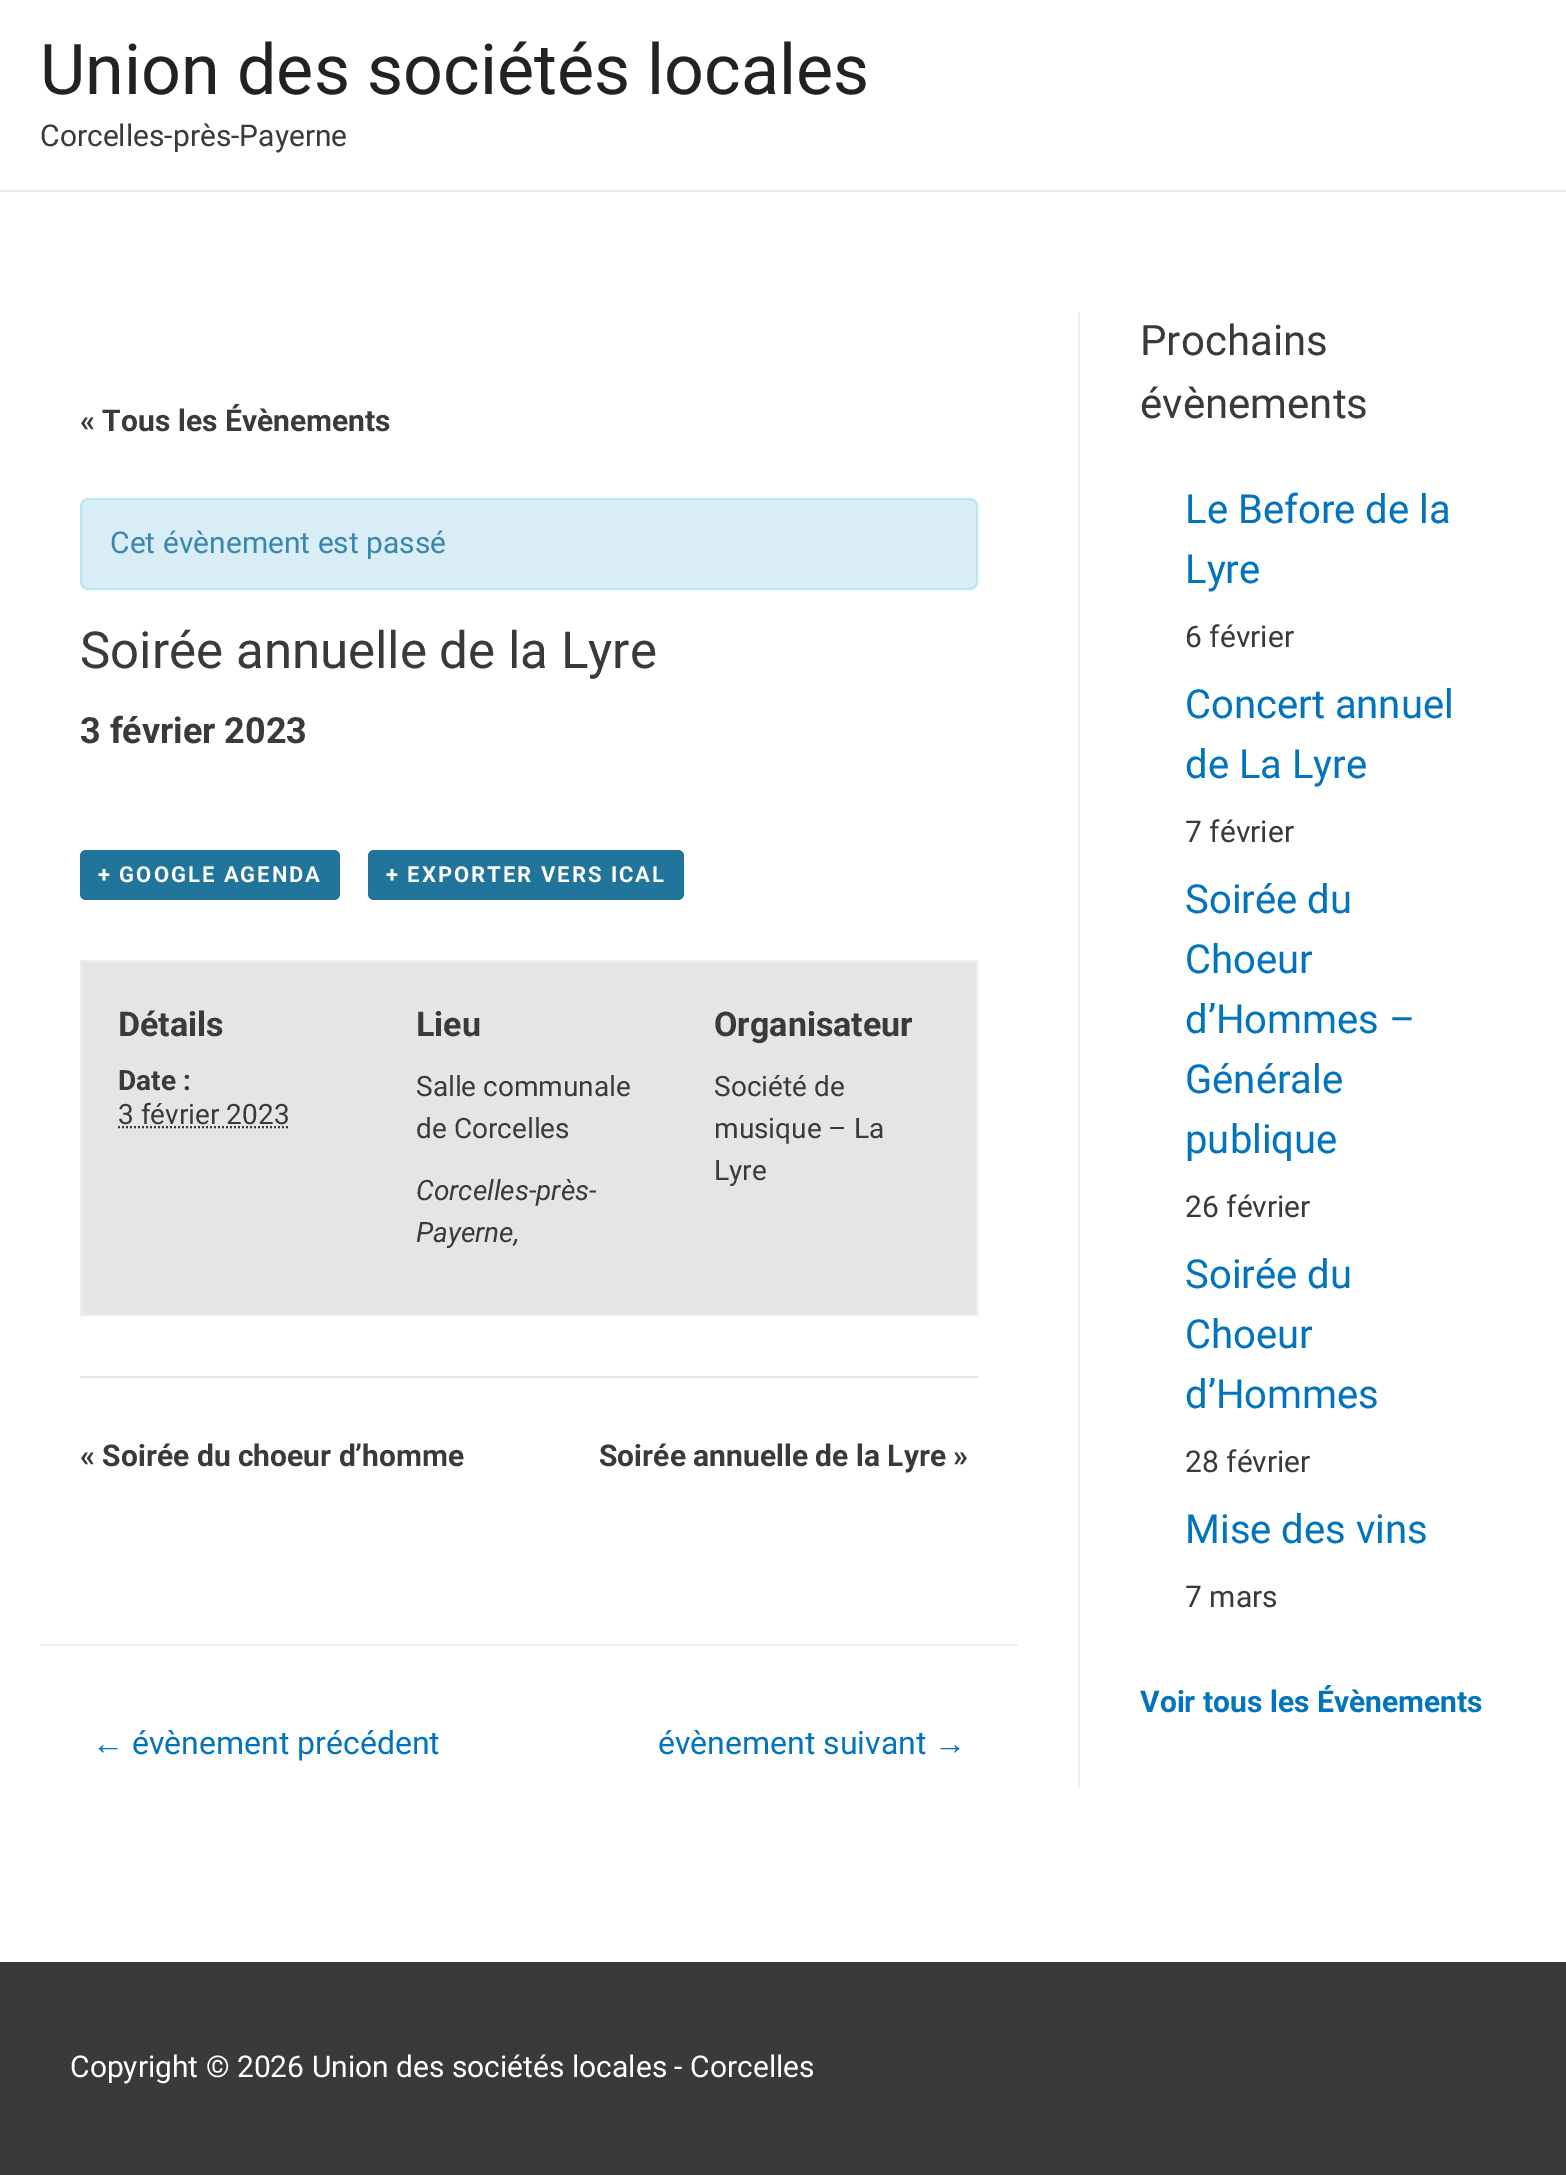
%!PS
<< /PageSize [1566 2175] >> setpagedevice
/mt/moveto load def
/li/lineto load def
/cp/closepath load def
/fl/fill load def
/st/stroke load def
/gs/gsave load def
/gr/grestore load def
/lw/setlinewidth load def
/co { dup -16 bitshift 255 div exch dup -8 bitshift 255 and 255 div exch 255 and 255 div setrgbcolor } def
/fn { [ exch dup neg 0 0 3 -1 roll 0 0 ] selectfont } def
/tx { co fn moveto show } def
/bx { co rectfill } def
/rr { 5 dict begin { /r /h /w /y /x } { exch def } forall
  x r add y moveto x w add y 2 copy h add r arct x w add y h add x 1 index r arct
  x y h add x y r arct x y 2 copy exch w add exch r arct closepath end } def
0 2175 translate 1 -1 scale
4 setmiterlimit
0 0 1566 2175 16#FFFFFF bx
0 190 1566 2 16#EAEAEA bx
1078 312 2 1476 16#EEEEEE bx
16#D9EDF7 co
81 499 896 90 7 rr gs fl gr
16#BCE8F1 co
2 lw
st
16#21759B co
80 850 260 50 6 rr fl
368 850 316 50 6 rr fl
16#E5E5E5 co
81 961 mt 977 961 li 977 1315 li 81 1315 li cp gs fl gr
16#EEEEEE co
st
16#3A3A3A co
[2 2] 0 setdash
118 1127 mt 289 1127 li st
80 1376 898 2 16#E5E5E5 bx
40 1644 978 2 16#EEEEEE bx
0 1962 1566 213 16#3A3A3A bx
(Union des sociétés locales) 40 94 /Roboto-Regular 70 16#222222 tx
(Corcelles-près-Payerne) 40 146 /Roboto-Regular 30 16#3A3A3A tx
(« Tous les Évènements) 80 431 /Roboto-Bold 30 16#3A3A3A tx
(Cet évènement est passé) 110 553 /Roboto-Regular 30 16#3A87AD tx
(Soirée annuelle de la Lyre) 80 668 /Roboto-Regular 51 16#3A3A3A tx
(3 février 2023) 80 743 /Roboto-Bold 36 16#3A3A3A tx
/Roboto-Bold 22 fn
16#FFFFFF co
98 882 mt 2 0 (+ GOOGLE AGENDA) ashow
386 882 mt 2 0 (+ EXPORTER VERS ICAL) ashow
(Détails) 118 1036 /Roboto-Bold 34 16#3A3A3A tx
(Date :) 118 1090 /Roboto-Bold 28 16#3A3A3A tx
(3 février 2023) 118 1124 /Roboto-Regular 28 16#3A3A3A tx
(Lieu) 416 1036 /Roboto-Bold 34 16#3A3A3A tx
(Salle communale) 416 1096 /Roboto-Regular 28 16#3A3A3A tx
(de Corcelles) 416 1138 /Roboto-Regular 28 16#3A3A3A tx
(Corcelles-près-) 416 1200 /Roboto-Italic 28 16#3A3A3A tx
(Payerne,) 416 1242 /Roboto-Italic 28 16#3A3A3A tx
(Organisateur) 714 1036 /Roboto-Bold 34 16#3A3A3A tx
(Société de) 714 1096 /Roboto-Regular 28 16#3A3A3A tx
(musique – La) 714 1138 /Roboto-Regular 28 16#3A3A3A tx
(Lyre) 714 1180 /Roboto-Regular 28 16#3A3A3A tx
(« Soirée du choeur d’homme) 80 1466 /Roboto-Bold 30 16#3A3A3A tx
(Soirée annuelle de la Lyre ») 599 1466 /Roboto-Bold 30 16#3A3A3A tx
(←) 92 1754 /LiberationSans-Regular 32 16#0274BE tx
(évènement précédent) 132 1754 /Roboto-Regular 32 16#0274BE tx
(évènement suivant) 658 1754 /Roboto-Regular 32 16#0274BE tx
(→) 934 1754 /LiberationSans-Regular 32 16#0274BE tx
(Prochains) 1140 355 /Roboto-Regular 42 16#3A3A3A tx
(évènements) 1140 418 /Roboto-Regular 42 16#3A3A3A tx
(Le Before de la) 1185 523 /Roboto-Regular 40 16#0274BE tx
(Lyre) 1185 583 /Roboto-Regular 40 16#0274BE tx
(6 février) 1185 647 /Roboto-Regular 30 16#3A3A3A tx
(Concert annuel) 1185 718 /Roboto-Regular 40 16#0274BE tx
(de La Lyre) 1185 778 /Roboto-Regular 40 16#0274BE tx
(7 février) 1185 842 /Roboto-Regular 30 16#3A3A3A tx
(Soirée du) 1185 913 /Roboto-Regular 40 16#0274BE tx
(Choeur) 1185 973 /Roboto-Regular 40 16#0274BE tx
(d’Hommes –) 1185 1033 /Roboto-Regular 40 16#0274BE tx
(Générale) 1185 1093 /Roboto-Regular 40 16#0274BE tx
(publique) 1185 1153 /Roboto-Regular 40 16#0274BE tx
(26 février) 1185 1217 /Roboto-Regular 30 16#3A3A3A tx
(Soirée du) 1185 1288 /Roboto-Regular 40 16#0274BE tx
(Choeur) 1185 1348 /Roboto-Regular 40 16#0274BE tx
(d’Hommes) 1185 1408 /Roboto-Regular 40 16#0274BE tx
(28 février) 1185 1472 /Roboto-Regular 30 16#3A3A3A tx
(Mise des vins) 1185 1543 /Roboto-Regular 40 16#0274BE tx
(7 mars) 1185 1607 /Roboto-Regular 30 16#3A3A3A tx
(Voir tous les Évènements) 1140 1712 /Roboto-Bold 30 16#0274BE tx
(Copyright © 2026 Union des sociétés locales - Corcelles) 70 2077 /Roboto-Regular 30 16#FFFFFF tx
showpage
